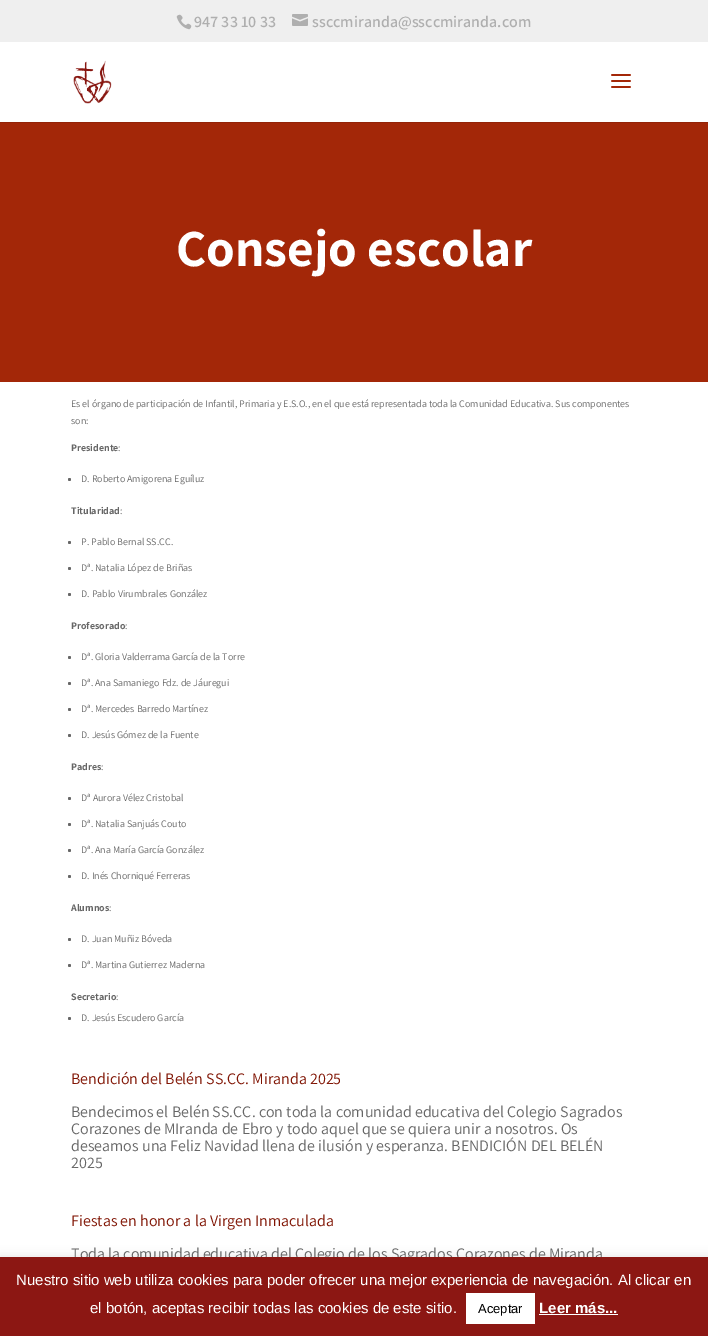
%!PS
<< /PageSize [708 1336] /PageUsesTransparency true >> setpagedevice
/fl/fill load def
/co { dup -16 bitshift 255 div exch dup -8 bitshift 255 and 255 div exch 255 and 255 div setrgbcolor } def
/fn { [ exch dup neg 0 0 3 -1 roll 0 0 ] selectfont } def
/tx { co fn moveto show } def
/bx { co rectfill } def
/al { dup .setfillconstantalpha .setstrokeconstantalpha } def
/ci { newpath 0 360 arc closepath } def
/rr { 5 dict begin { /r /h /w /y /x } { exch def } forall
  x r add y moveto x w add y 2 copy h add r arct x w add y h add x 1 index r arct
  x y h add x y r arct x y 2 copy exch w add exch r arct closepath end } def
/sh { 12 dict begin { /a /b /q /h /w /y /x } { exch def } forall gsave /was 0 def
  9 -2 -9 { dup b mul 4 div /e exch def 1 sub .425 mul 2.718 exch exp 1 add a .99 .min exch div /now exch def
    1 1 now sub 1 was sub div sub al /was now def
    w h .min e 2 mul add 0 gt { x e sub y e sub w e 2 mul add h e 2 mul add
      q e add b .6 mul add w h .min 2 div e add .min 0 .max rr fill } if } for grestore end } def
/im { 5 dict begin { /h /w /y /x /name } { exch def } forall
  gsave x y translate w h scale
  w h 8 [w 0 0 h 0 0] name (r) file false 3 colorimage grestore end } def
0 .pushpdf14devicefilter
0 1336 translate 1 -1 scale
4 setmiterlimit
0 0 708 1336 16#FFFFFF bx
0 0 708 42 16#EFEFEF bx
(media/1.raw) 176 14 16 16 im
(media/2.raw) 292 14 16 12 im
0 122 708 1 16#932307 bx
(media/3.raw) 73 60 39 44 im
(media/4.raw) 611 74 20 14 im
0 123 708 259 16#A32708 bx
16#666666 co
69.5 479.5 1.5 ci fl
69.5 542.5 1.5 ci fl
69.5 568.5 1.5 ci fl
69.5 594.5 1.5 ci fl
69.5 657.5 1.5 ci fl
69.5 683.5 1.5 ci fl
69.5 709.5 1.5 ci fl
69.5 735.5 1.5 ci fl
69.5 798.5 1.5 ci fl
69.5 824.5 1.5 ci fl
69.5 850.5 1.5 ci fl
69.5 876.5 1.5 ci fl
69.5 939.5 1.5 ci fl
69.5 965.5 1.5 ci fl
69.5 1018.5 1.5 ci fl
16#ACABAB co
0 1256 708 79 0 5 .3 sh
(947 33 10 33) 194 27 /Assistant-SemiBold 16 16#AFAFAF tx
(ssccmiranda@ssccmiranda.com) 312 27 /Assistant-SemiBold 16 16#AFAFAF tx
(Consejo escolar) 176 266 /Assistant-Bold 52 16#FFFFFF tx
(Es el órgano de participación de Infantil, Primaria y E.S.O., en el que está representada toda la Comunidad Educativa. Sus componentes) 71 407 /Assistant-Regular 10 16#666666 tx
(son:) 71 424 /Assistant-Regular 10 16#666666 tx
(Presidente) 71 451 /Assistant-Bold 10 16#666666 tx
(:) 118 451 /Assistant-Regular 10 16#666666 tx
(D. Roberto Amigorena Eguíluz) 81 482 /Assistant-Regular 10 16#666666 tx
(Titularidad) 71 514 /Assistant-Bold 10 16#666666 tx
(:) 120 514 /Assistant-Regular 10 16#666666 tx
(P. Pablo Bernal SS.CC.) 81 545 /Assistant-Regular 10 16#666666 tx
(Dª. Natalia López de Briñas) 81 571 /Assistant-Regular 10 16#666666 tx
(D. Pablo Virumbrales González) 81 597 /Assistant-Regular 10 16#666666 tx
(Profesorado) 71 629 /Assistant-Bold 10 16#666666 tx
(:) 125 629 /Assistant-Regular 10 16#666666 tx
(Dª. Gloria Valderrama García de la Torre) 81 660 /Assistant-Regular 10 16#666666 tx
(Dª. Ana Samaniego Fdz. de Jáuregui) 81 686 /Assistant-Regular 10 16#666666 tx
(Dª. Mercedes Barredo Martínez) 81 712 /Assistant-Regular 10 16#666666 tx
(D. Jesús Gómez de la Fuente) 81 738 /Assistant-Regular 10 16#666666 tx
(Padres) 71 770 /Assistant-Bold 10 16#666666 tx
(:) 101 770 /Assistant-Regular 10 16#666666 tx
(Dª Aurora Vélez Cristobal) 81 801 /Assistant-Regular 10 16#666666 tx
(Dª. Natalia Sanjuás Couto) 81 827 /Assistant-Regular 10 16#666666 tx
(Dª. Ana María García González) 81 853 /Assistant-Regular 10 16#666666 tx
(D. Inés Chorniqué Ferreras) 81 879 /Assistant-Regular 10 16#666666 tx
(Alumnos) 71 911 /Assistant-Bold 10 16#666666 tx
(:) 109 911 /Assistant-Regular 10 16#666666 tx
(D. Juan Muñiz Bóveda) 81 942 /Assistant-Regular 10 16#666666 tx
(Dª. Martina Gutierrez Maderna) 81 968 /Assistant-Regular 10 16#666666 tx
(Secretario) 71 1000 /Assistant-Bold 10 16#666666 tx
(:) 116 1000 /Assistant-Regular 10 16#666666 tx
(D. Jesús Escudero García) 81 1021 /Assistant-Regular 10 16#666666 tx
(Bendición del Belén SS.CC. Miranda 2025) 71 1084 /Assistant-Regular 16 16#7F1302 tx
(Bendecimos el Belén SS.CC. con toda la comunidad educativa del Colegio Sagrados) 71 1117 /Assistant-Regular 16 16#666666 tx
(Corazones de MIranda de Ebro y todo aquel que se quiera unir a nosotros. Os) 71 1134 /Assistant-Regular 16 16#666666 tx
(deseamos una Feliz Navidad llena de ilusión y esperanza. BENDICIÓN DEL BELÉN) 71 1151 /Assistant-Regular 16 16#666666 tx
(2025) 71 1168 /Assistant-Regular 16 16#666666 tx
(Fiestas en honor a la Virgen Inmaculada) 71 1226 /Assistant-Regular 16 16#7F1302 tx
(Toda la comunidad educativa del Colegio de los Sagrados Corazones de Miranda) 71 1259 /Assistant-Regular 16 16#666666 tx
0 1257 708 79 16#8C1713 bx
(Nuestro sitio web utiliza cookies para poder ofrecer una mejor experiencia de navegación. Al clicar en) 16 1285 /LiberationSans-Regular 15 16#FFFFFF tx
(el botón, aceptas recibir todas las cookies de este sitio.) 90 1313 /LiberationSans-Regular 15 16#FFFFFF tx
466 1293 69 31 16#FFFFFF bx
(Aceptar) 478 1313 /LiberationSans-Regular 13 16#000000 tx
(Leer más...) 539 1313 /LiberationSans-Bold 15 16#FFFFFF tx
539 1314 79 1 16#FFFFFF bx
.poppdf14devicefilter showpage
